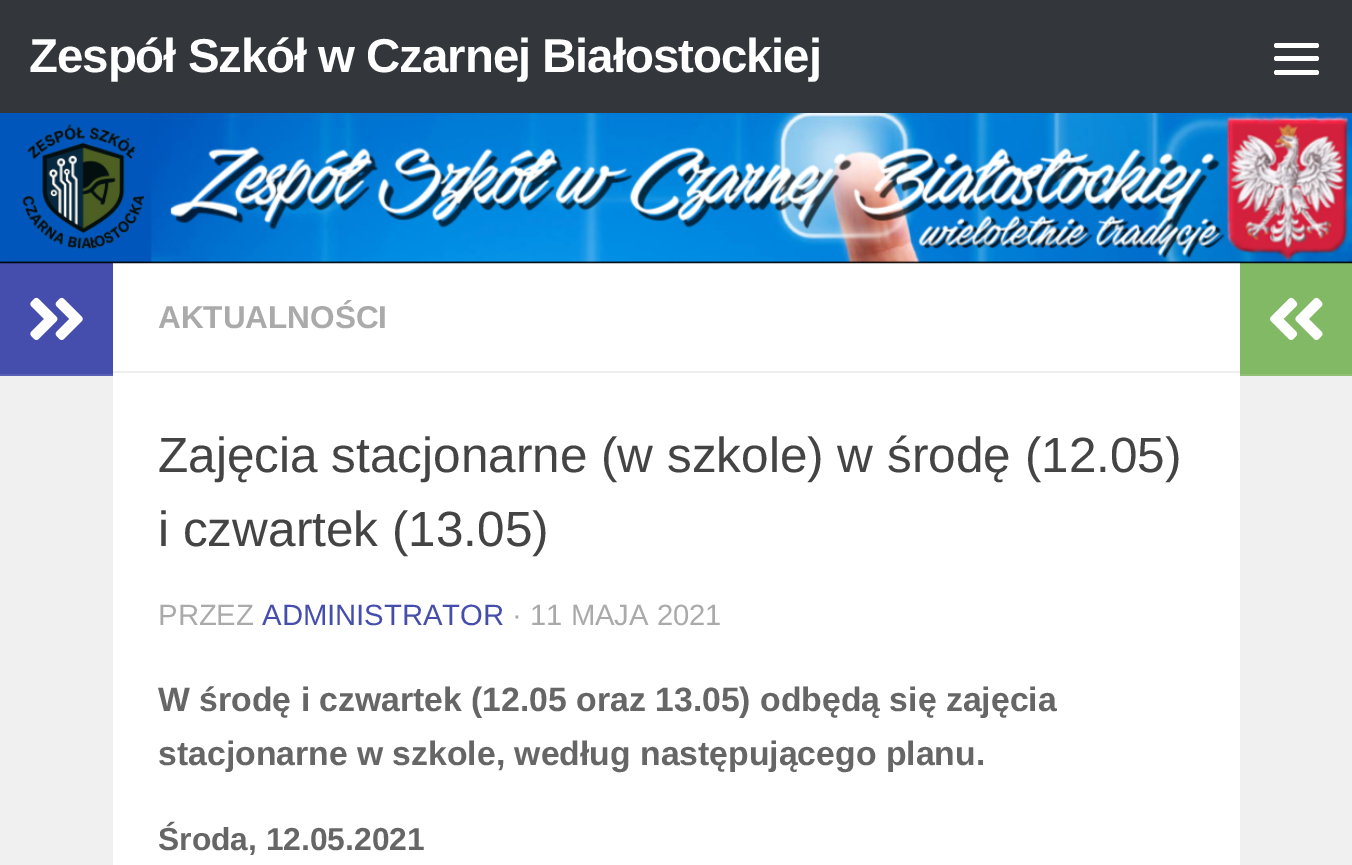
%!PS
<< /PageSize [1352 865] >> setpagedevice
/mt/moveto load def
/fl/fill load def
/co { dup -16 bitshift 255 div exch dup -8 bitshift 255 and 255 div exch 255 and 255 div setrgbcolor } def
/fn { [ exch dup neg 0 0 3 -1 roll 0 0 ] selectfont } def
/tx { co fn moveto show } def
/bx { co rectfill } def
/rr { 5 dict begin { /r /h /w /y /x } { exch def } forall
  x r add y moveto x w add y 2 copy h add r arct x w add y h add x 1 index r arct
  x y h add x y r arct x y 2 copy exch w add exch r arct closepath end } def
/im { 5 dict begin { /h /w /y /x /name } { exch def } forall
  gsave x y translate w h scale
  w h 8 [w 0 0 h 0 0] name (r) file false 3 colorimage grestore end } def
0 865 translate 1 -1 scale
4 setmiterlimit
0 0 1352 865 16#FFFFFF bx
0 0 1352 113 16#33363B bx
16#FFFFFF co
1274 43 45 5 2.5 rr fl
1274 56 45 5 2.5 rr fl
1274 70 45 5 2.5 rr fl
0 263 113 111 16#454EAD bx
1240 263 112 111 16#82B965 bx
(media/1.raw) 0 113 1352 151 im
0 376 113 489 16#F0F0F0 bx
0 374 113 2 16#5860B5 bx
(media/2.raw) 30 297 53 43 im
113 371 1127 2 16#EEEEEE bx
1240 374 112 2 16#8FC074 bx
(media/3.raw) 1270 297 53 43 im
1240 376 112 489 16#F0F0F0 bx
/LiberationSans-Bold 47.5 fn
16#FFFFFF co
29 72 mt -1.1 0 (Zespół Szkół w Czarnej Białostockiej) ashow
(AKTUALNOŚCI) 158 328 /LiberationSans-Bold 31.5 16#AAAAAA tx
(Zajęcia stacjonarne \(w szkole\) w środę \(12.05\)) 158 472 /LiberationSans-Regular 49.5 16#444444 tx
(i czwartek \(13.05\)) 158 546 /LiberationSans-Regular 49.5 16#444444 tx
(PRZEZ) 158 625 /LiberationSans-Regular 29.25 16#AAAAAA tx
(ADMINISTRATOR) 262 625 /LiberationSans-Regular 29.25 16#454EAD tx
(· 11 MAJA 2021) 512 625 /LiberationSans-Regular 29.25 16#AAAAAA tx
(W środę i czwartek \(12.05 oraz 13.05\) odbędą się zajęcia) 158 711 /LiberationSans-Bold 33.75 16#666666 tx
(stacjonarne w szkole, według następującego planu.) 158 765 /LiberationSans-Bold 33.75 16#666666 tx
(Środa, 12.05.2021) 158 850 /LiberationSans-Bold 31.75 16#666666 tx
showpage
